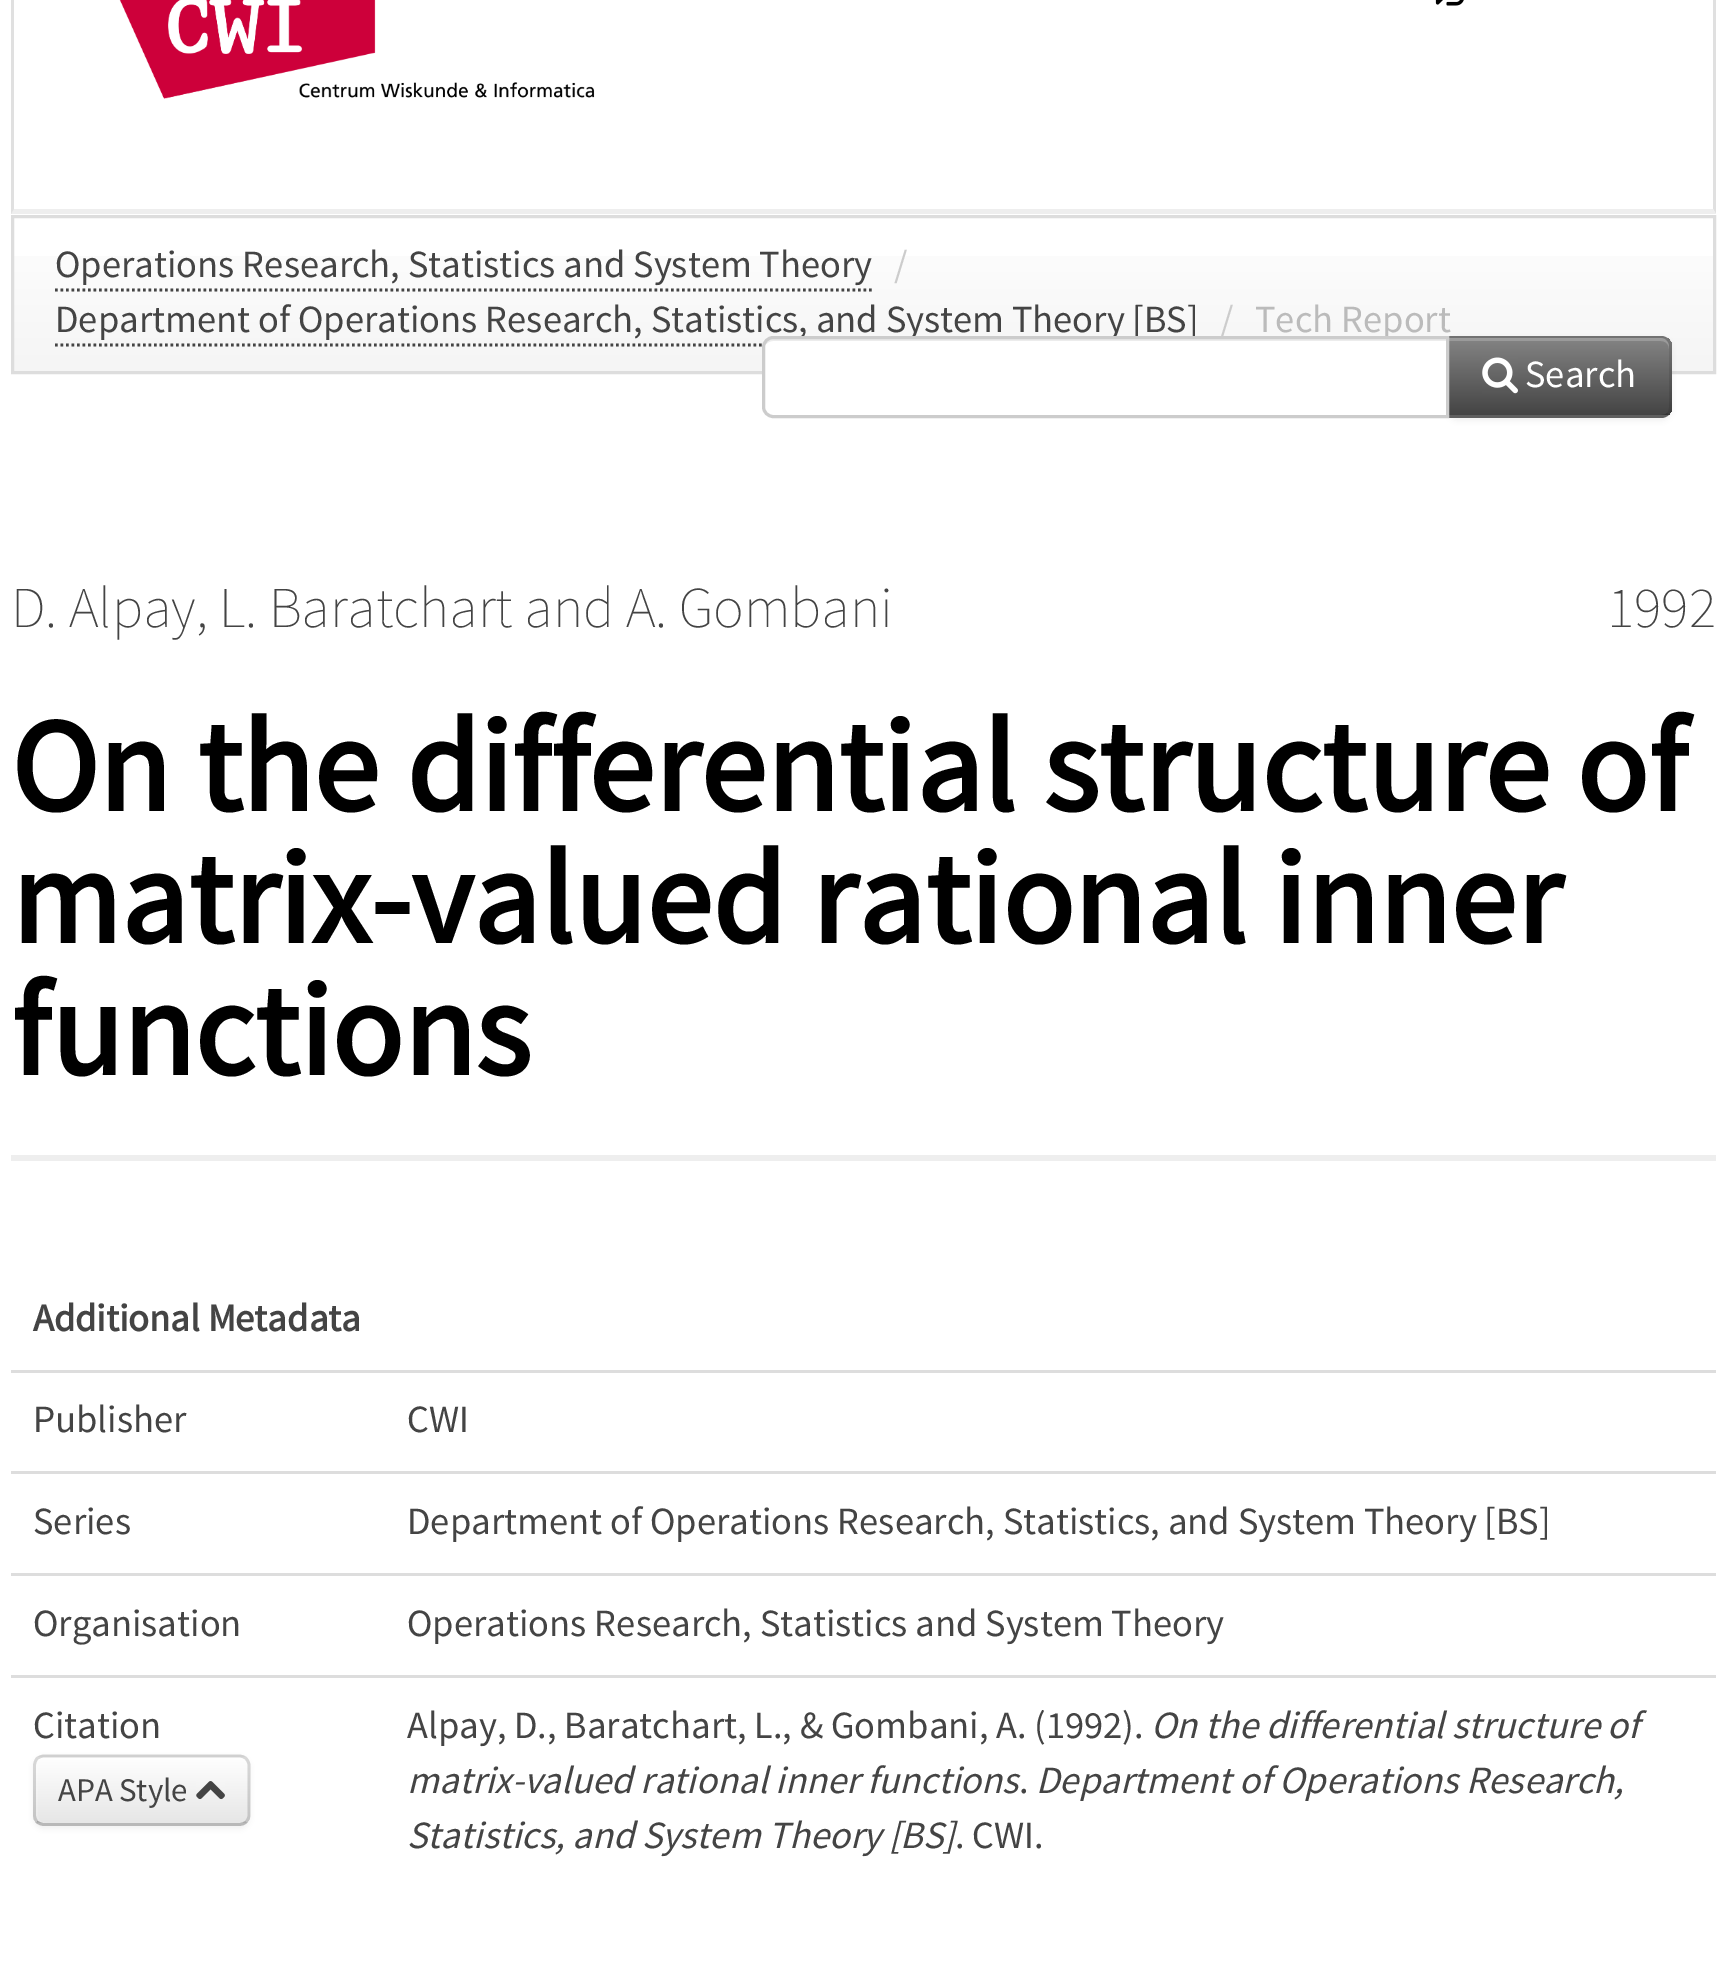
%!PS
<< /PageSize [1725 1961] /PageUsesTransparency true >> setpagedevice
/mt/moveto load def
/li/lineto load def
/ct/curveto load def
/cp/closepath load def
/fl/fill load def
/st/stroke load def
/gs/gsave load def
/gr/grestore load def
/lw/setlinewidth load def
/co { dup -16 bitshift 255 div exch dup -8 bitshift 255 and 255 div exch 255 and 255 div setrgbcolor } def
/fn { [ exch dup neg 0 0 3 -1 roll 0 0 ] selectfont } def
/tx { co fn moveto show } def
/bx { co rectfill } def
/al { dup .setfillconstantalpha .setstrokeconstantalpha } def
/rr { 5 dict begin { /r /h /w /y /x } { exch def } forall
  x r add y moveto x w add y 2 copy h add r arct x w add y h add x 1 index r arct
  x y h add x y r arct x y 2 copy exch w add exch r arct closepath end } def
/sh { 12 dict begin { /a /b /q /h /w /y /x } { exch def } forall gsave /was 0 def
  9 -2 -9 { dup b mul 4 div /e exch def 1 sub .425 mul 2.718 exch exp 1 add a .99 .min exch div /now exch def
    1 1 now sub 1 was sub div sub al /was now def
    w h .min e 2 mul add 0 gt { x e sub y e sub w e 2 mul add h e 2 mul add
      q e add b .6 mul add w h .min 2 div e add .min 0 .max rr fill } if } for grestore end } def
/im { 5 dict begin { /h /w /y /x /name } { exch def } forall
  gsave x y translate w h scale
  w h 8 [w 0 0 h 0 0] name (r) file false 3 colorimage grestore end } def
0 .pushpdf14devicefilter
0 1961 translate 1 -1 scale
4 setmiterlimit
0 0 1725 1961 16#FFFFFF bx
16#E0E0E0 co
1716 -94 mt 1716 214 li 1713 209 li 1713 -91 li cp fl
16#EEEEEE co
1716 214 mt 11 214 li 14 209 li 1713 209 li cp fl
16#E0E0E0 co
11 214 mt 11 -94 li 14 -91 li 14 209 li cp fl
(media/1.raw) 119 0 476 99 im
(media/2.raw) 1435 0 29 6 im
gs 14 256 mt 1713 256 li 1713 371 li 14 371 li cp clip newpath
<< /ShadingType 2 /ColorSpace /DeviceRGB /Coords [864 217 864 371] /Extend [true true] /Function << /FunctionType 2 /Domain [0 1] /C0 [1 1 1] /C1 [.961 .961 .961] /N 1 >> >> shfill gr
16#DDDDDD co
3 lw
12.5 216.5 1702 156 rectstroke
16#444444 co
2.8 lw
[2.75 2.75] 0 setdash
55 290 mt 872 290 li st
55 345 mt 1199 345 li st
16#000000 co
1447 338 225 83 11 3 .05 sh
16#7F7F7F co
1447 336 mt 1661 336 li 1667 336 1672 341 1672 347 ct 1672 407 li 1672 413 1667 418 1661 418 ct 1447 418 li cp fl
gs
1447 336 mt 1661 336 li 1667 336 1672 341 1672 347 ct 1672 407 li 1672 413 1667 418 1661 418 ct 1447 418 li cp clip newpath
gs 1449 338 mt 1672 338 li 1672 415 li 1449 415 li cp clip newpath
<< /ShadingType 2 /ColorSpace /DeviceRGB /Coords [1559 338 1559 415] /Extend [true true] /Function << /FunctionType 2 /Domain [0 1] /C0 [.518 .518 .518] /C1 [.267 .267 .267] /N 1 >> >> shfill gr
gr
0.2 al
16#FFFFFF co
1449 341 mt 1661 341 li 1666 341 1669 345 1669 349 ct 1669 346 li 1669 342 1665 338 1661 338 ct 1449 338 li cp fl
0.1 al
16#000000 co
1449 338 mt 1661 338 li 1664 338 1666 339 1667 341 ct 1669 339 li 1667 337 1664 336 1661 336 ct 1447 336 li cp fl
1669 339 mt 1671 340 1672 343 1672 346 ct 1672 407 li 1672 410 1671 413 1669 415 ct 1667 413 li 1668 412 1669 410 1669 407 ct 1669 346 li 1669 344 1668 342 1667 341 ct cp fl
0.25 al
1446 418 mt 1661 418 li 1664 418 1667 417 1669 415 ct 1667 413 li 1666 414 1664 415 1661 415 ct 1450 415 li cp fl
0.1 al
1449 338 mt 1446 336 li 1446 418 li 1450 415 li 1449 415 li cp fl
1 al
(media/3.raw) 1482 357 36 37 im
11 1155 1705 6 16#EEEEEE bx
11 1370 1705 3 16#DDDDDD bx
11 1471 1705 3 16#DDDDDD bx
11 1573 1705 3 16#DDDDDD bx
16#000000 co
33 1757 217 72 11 3 .05 sh
16#F5F5F5 co
33 1755 217 71 11 rr fl
gs
33 1755 217 71 11 rr clip newpath
gs 33 1757 mt 250 1757 li 250 1823 li 33 1823 li cp clip newpath
<< /ShadingType 2 /ColorSpace /DeviceRGB /Coords [142 1757 142 1823] /Extend [true true] /Function << /FunctionType 2 /Domain [0 1] /C0 [1 1 1] /C1 [.902 .902 .902] /N 1 >> >> shfill gr
gr
0.12 al
16#FFFFFF co
44 1757 mt 40 1757 36 1761 36 1765 ct 36 1815 li 36 1819 40 1823 44 1823 ct 47 1823 li 42 1823 38 1820 38 1815 ct 38 1766 li 38 1761 42 1757 47 1757 ct cp fl
0.25 al
16#000000 co
[] 0 setdash
246 1822 mt 244.5 1823.5 242 1824.5 239 1824.5 ct 44 1824.5 li 41.5 1824.5 39 1823.5 37 1822 ct st
0.15 al
37 1822 mt 35.5 1820 34.5 1817.5 34.5 1815 ct 34.5 1765.5 li 34.5 1763 35.5 1760.5 37 1758.5 ct 39 1757 41.5 1756 44 1756 ct 239 1756 li 242 1756 244.5 1757 246 1758.5 ct 248 1760.5 249 1763 249 1765.5 ct 249 1815 li 249 1817.5 248 1820 246 1822 ct st
1 al
(media/4.raw) 196 1781 29 19 im
11 1675 1705 3 16#DDDDDD bx
(Operations Research, Statistics and System Theory) 55 277 /SourceSansPro-Regular 38.5 16#444444 tx
(/) 894 277 /SourceSansPro-Regular 38.5 16#CCCCCC tx
(Department of Operations Research, Statistics, and System Theory [BS]) 55 332 /SourceSansPro-Regular 38.5 16#444444 tx
(/) 1220 332 /SourceSansPro-Regular 38.5 16#CCCCCC tx
(Tech Report) 1255 332 /SourceSansPro-Regular 38.5 16#BBBBBB tx
16#FFFFFF co
773 336 mt 1449 336 li 1449 418 li 773 418 li 767 418 762 413 762 407 ct 762 347 li 762 341 767 336 773 336 ct cp fl
16#ECECEC co
773 341 mt 1446 341 li 1446 415 li 1447 415 li 1447 338 li 773 338 li 769 338 765 341 765 345 ct 767 343 770 341 773 341 ct cp fl
16#CCCCCC co
3 lw
773 337.5 mt 1447.5 337.5 li 1447.5 416.5 li 773 416.5 li 768 416.5 763.5 412 763.5 407 ct 763.5 347 li 763.5 342 768 337.5 773 337.5 ct cp st
(Search) 1525 387 /SourceSansPro-Regular 38.5 16#FFFFFF tx
(D. Alpay, L. Baratchart and A. Gombani) 11 627 /SourceSansPro-ExtraLight 57.75 16#444444 tx
(1992) 1607 627 /SourceSansPro-ExtraLight 57.75 16#444444 tx
(On the differential structure of) 11 811 /SourceSansPro-Bold 132 16#000000 tx
(matrix-valued rational inner) 11 943 /SourceSansPro-Bold 132 16#000000 tx
(functions) 11 1075 /SourceSansPro-Bold 132 16#000000 tx
(Additional Metadata) 33 1331 /SourceSansPro-Bold 38.5 16#444444 tx
(Publisher) 33 1432 /SourceSansPro-Regular 38.5 16#444444 tx
(CWI) 407 1432 /SourceSansPro-Regular 38.5 16#444444 tx
(Series) 33 1534 /SourceSansPro-Regular 38.5 16#444444 tx
(Department of Operations Research, Statistics, and System Theory [BS]) 407 1534 /SourceSansPro-Regular 38.5 16#444444 tx
(Organisation) 33 1636 /SourceSansPro-Regular 38.5 16#444444 tx
(Operations Research, Statistics and System Theory) 407 1636 /SourceSansPro-Regular 38.5 16#444444 tx
(Citation) 33 1738 /SourceSansPro-Regular 38.5 16#444444 tx
(APA Style) 58 1801 /SourceSansPro-Regular 33 16#444444 tx
(Alpay, D., Baratchart, L., & Gombani, A. \(1992\).) 407 1738 /SourceSansPro-Regular 38.5 16#444444 tx
(On the differential structure of) 1151 1738 /SourceSansPro-Italic 38.5 16#444444 tx
(matrix-valued rational inner functions) 407 1793 /SourceSansPro-Italic 38.5 16#444444 tx
(.) 1019 1793 /SourceSansPro-Regular 38.5 16#444444 tx
(Department of Operations Research,) 1036 1793 /SourceSansPro-Italic 38.5 16#444444 tx
(Statistics, and System Theory [BS]) 407 1848 /SourceSansPro-Italic 38.5 16#444444 tx
(. CWI.) 955 1848 /SourceSansPro-Regular 38.5 16#444444 tx
.poppdf14devicefilter showpage
